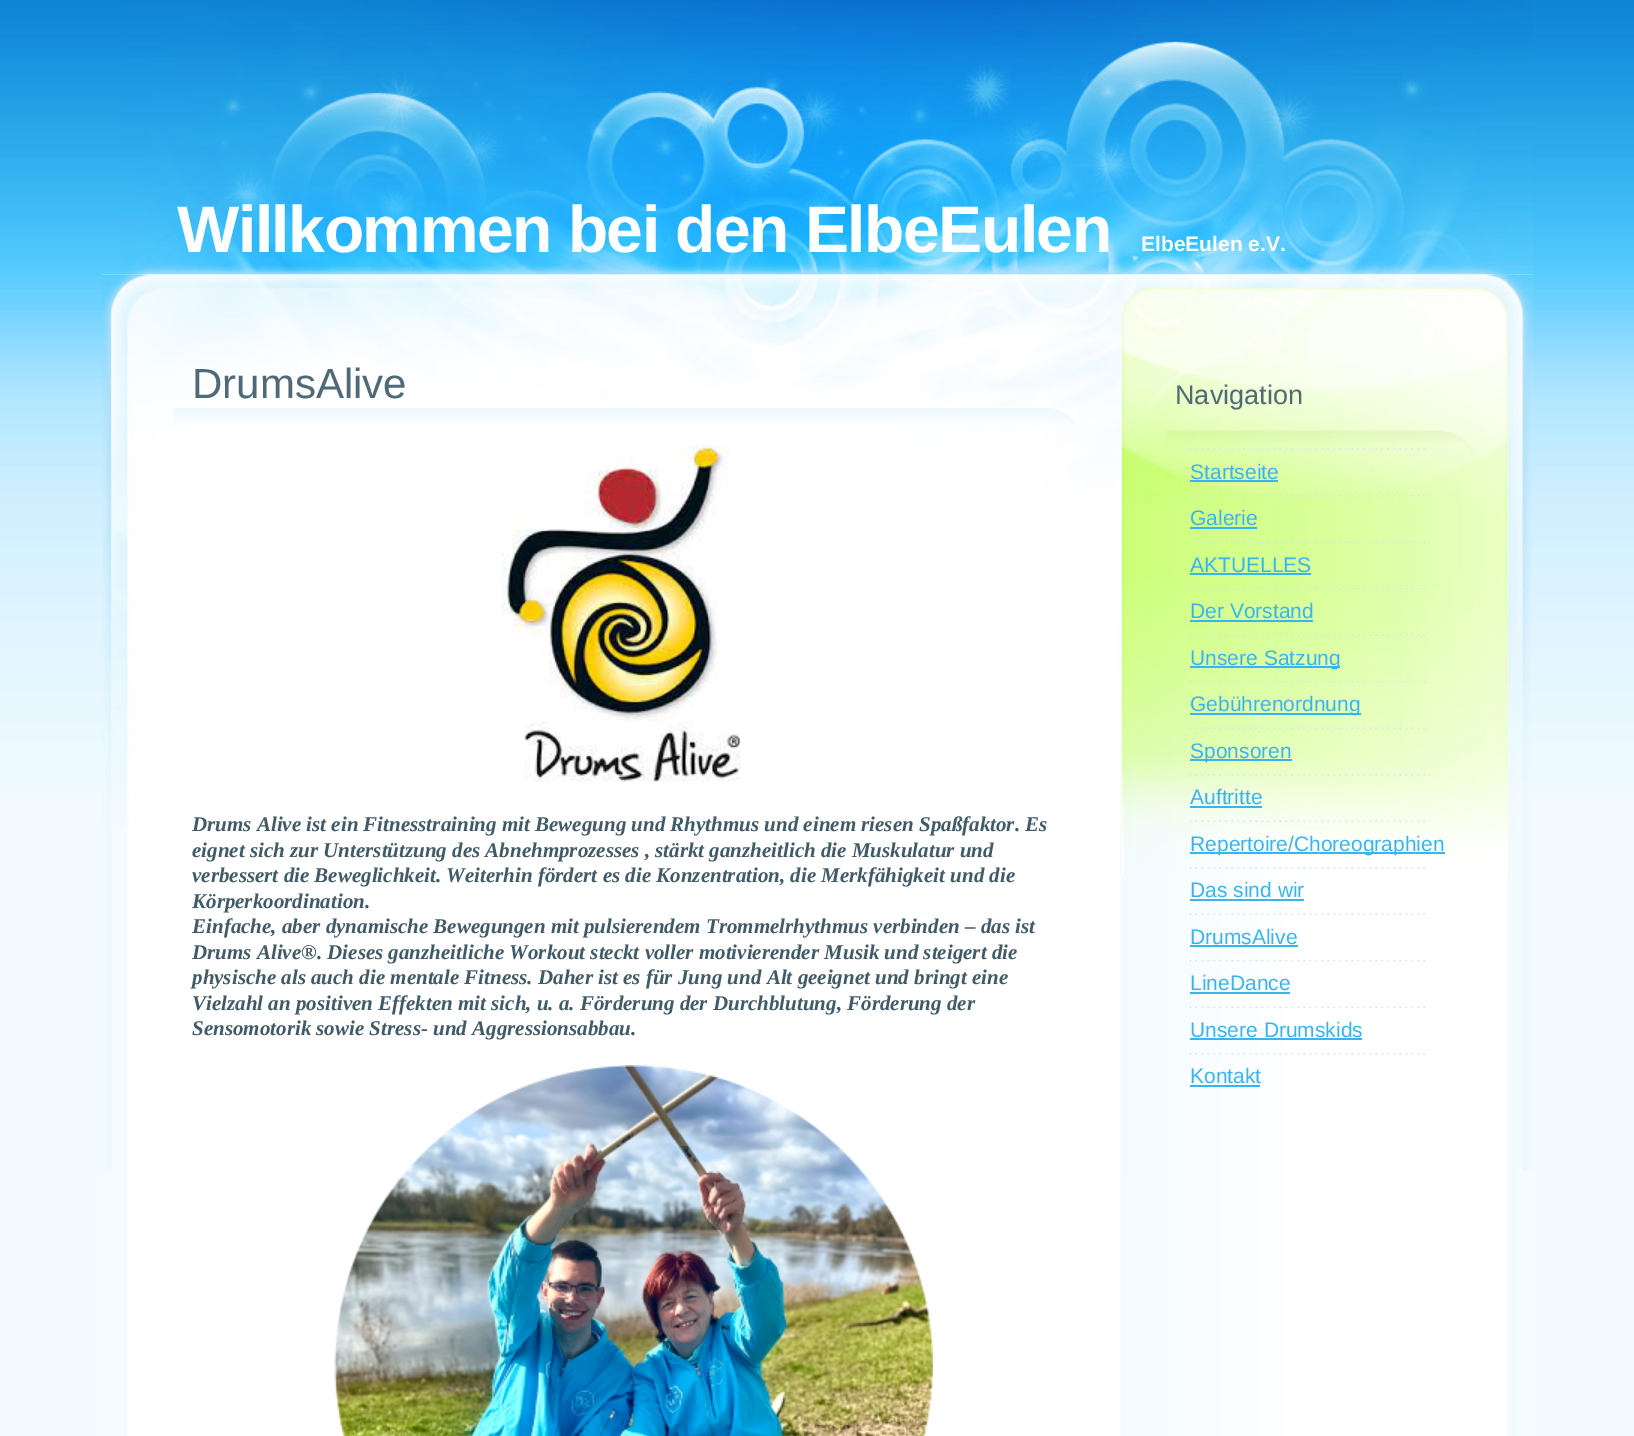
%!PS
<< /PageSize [1634 1436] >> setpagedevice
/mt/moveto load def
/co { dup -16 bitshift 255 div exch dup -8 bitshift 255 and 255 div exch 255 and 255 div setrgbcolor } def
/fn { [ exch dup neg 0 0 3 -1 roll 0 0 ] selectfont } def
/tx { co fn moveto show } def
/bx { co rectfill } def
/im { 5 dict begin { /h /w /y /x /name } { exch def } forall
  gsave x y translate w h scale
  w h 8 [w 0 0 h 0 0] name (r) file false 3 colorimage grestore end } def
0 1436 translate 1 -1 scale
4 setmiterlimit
0 0 1634 1436 16#F4FBFF bx
(media/1.raw) 0 0 1634 792 im
(media/2.raw) 120 0 1413 275 im
(media/3.raw) 102 274 1431 1162 im
(media/4.raw) 102 274 1020 897 im
(media/5.raw) 174 408 903 18 im
(media/6.raw) 501 445 240 337 im
(media/7.raw) 334 1065 599 371 im
(media/8.raw) 1122 274 411 897 im
(media/9.raw) 1122 274 386 601 im
(media/10.raw) 1189 448 241 2 im
1190 480 88 2 16#38B5F1 bx
(media/11.raw) 1189 495 241 2 im
1190 527 67 2 16#38B5F1 bx
(media/12.raw) 1189 541 241 2 im
1190 573 121 2 16#38B5F1 bx
(media/13.raw) 1189 588 241 2 im
1190 620 123 2 16#38B5F1 bx
(media/14.raw) 1189 634 241 2 im
1190 666 150 2 16#38B5F1 bx
(media/15.raw) 1189 681 241 2 im
1190 713 171 2 16#38B5F1 bx
(media/16.raw) 1189 727 241 2 im
1190 759 102 2 16#38B5F1 bx
(media/17.raw) 1189 774 241 2 im
1190 806 72 2 16#38B5F1 bx
(media/18.raw) 1189 820 241 2 im
1190 852 255 2 16#38B5F1 bx
(media/19.raw) 1189 867 241 2 im
1190 899 114 2 16#38B5F1 bx
(media/20.raw) 1189 913 241 2 im
1190 945 108 2 16#38B5F1 bx
(media/21.raw) 1189 960 241 2 im
1190 992 100 2 16#38B5F1 bx
(media/20.raw) 1189 1006 241 2 im
1190 1038 172 2 16#38B5F1 bx
(media/21.raw) 1189 1053 241 2 im
1190 1085 70 2 16#38B5F1 bx
/LiberationSans-Bold 66 fn
16#FFFFFF co
177 252 mt -1.5 0 (Willkommen bei den ElbeEulen) ashow
(ElbeEulen e.V.) 1141 251 /LiberationSans-Bold 21 16#FFFFFF tx
(DrumsAlive) 192 398 /LiberationSans-Regular 42 16#4F6977 tx
(Drums Alive ist ein Fitnesstraining mit Bewegung und Rhythmus und einem riesen Spaßfaktor. Es) 192 831 /LiberationSerif-BoldItalic 21 16#405A67 tx
(eignet sich zur Unterstützung des Abnehmprozesses , stärkt ganzheitlich die Muskulatur und) 192 857 /LiberationSerif-BoldItalic 21 16#405A67 tx
(verbessert die Beweglichkeit. Weiterhin fördert es die Konzentration, die Merkfähigkeit und die) 192 882 /LiberationSerif-BoldItalic 21 16#405A67 tx
(Körperkoordination.) 192 908 /LiberationSerif-BoldItalic 21 16#405A67 tx
(Einfache, aber dynamische Bewegungen mit pulsierendem Trommelrhythmus verbinden – das ist) 192 933 /LiberationSerif-BoldItalic 21 16#405A67 tx
(Drums Alive®. Dieses ganzheitliche Workout steckt voller motivierender Musik und steigert die) 192 959 /LiberationSerif-BoldItalic 21 16#405A67 tx
(physische als auch die mentale Fitness. Daher ist es für Jung und Alt geeignet und bringt eine) 192 984 /LiberationSerif-BoldItalic 21 16#405A67 tx
(Vielzahl an positiven Effekten mit sich, u. a. Förderung der Durchblutung, Förderung der) 192 1010 /LiberationSerif-BoldItalic 21 16#405A67 tx
(Sensomotorik sowie Stress- und Aggressionsabbau.) 192 1035 /LiberationSerif-BoldItalic 21 16#405A67 tx
(Navigation) 1175 404 /LiberationSans-Regular 27 16#4F6977 tx
(Startseite) 1190 479 /LiberationSans-Regular 21 16#38B5F1 tx
(Galerie) 1190 525 /LiberationSans-Regular 21 16#38B5F1 tx
(AKTUELLES) 1190 572 /LiberationSans-Regular 21 16#38B5F1 tx
(Der Vorstand) 1190 618 /LiberationSans-Regular 21 16#38B5F1 tx
(Unsere Satzung) 1190 665 /LiberationSans-Regular 21 16#38B5F1 tx
(Gebührenordnung) 1190 711 /LiberationSans-Regular 21 16#38B5F1 tx
(Sponsoren) 1190 758 /LiberationSans-Regular 21 16#38B5F1 tx
(Auftritte) 1190 804 /LiberationSans-Regular 21 16#38B5F1 tx
(Repertoire/Choreographien) 1190 851 /LiberationSans-Regular 21 16#38B5F1 tx
(Das sind wir) 1190 897 /LiberationSans-Regular 21 16#38B5F1 tx
(DrumsAlive) 1190 944 /LiberationSans-Regular 21 16#38B5F1 tx
(LineDance) 1190 990 /LiberationSans-Regular 21 16#38B5F1 tx
(Unsere Drumskids) 1190 1037 /LiberationSans-Regular 21 16#38B5F1 tx
(Kontakt) 1190 1083 /LiberationSans-Regular 21 16#38B5F1 tx
showpage
